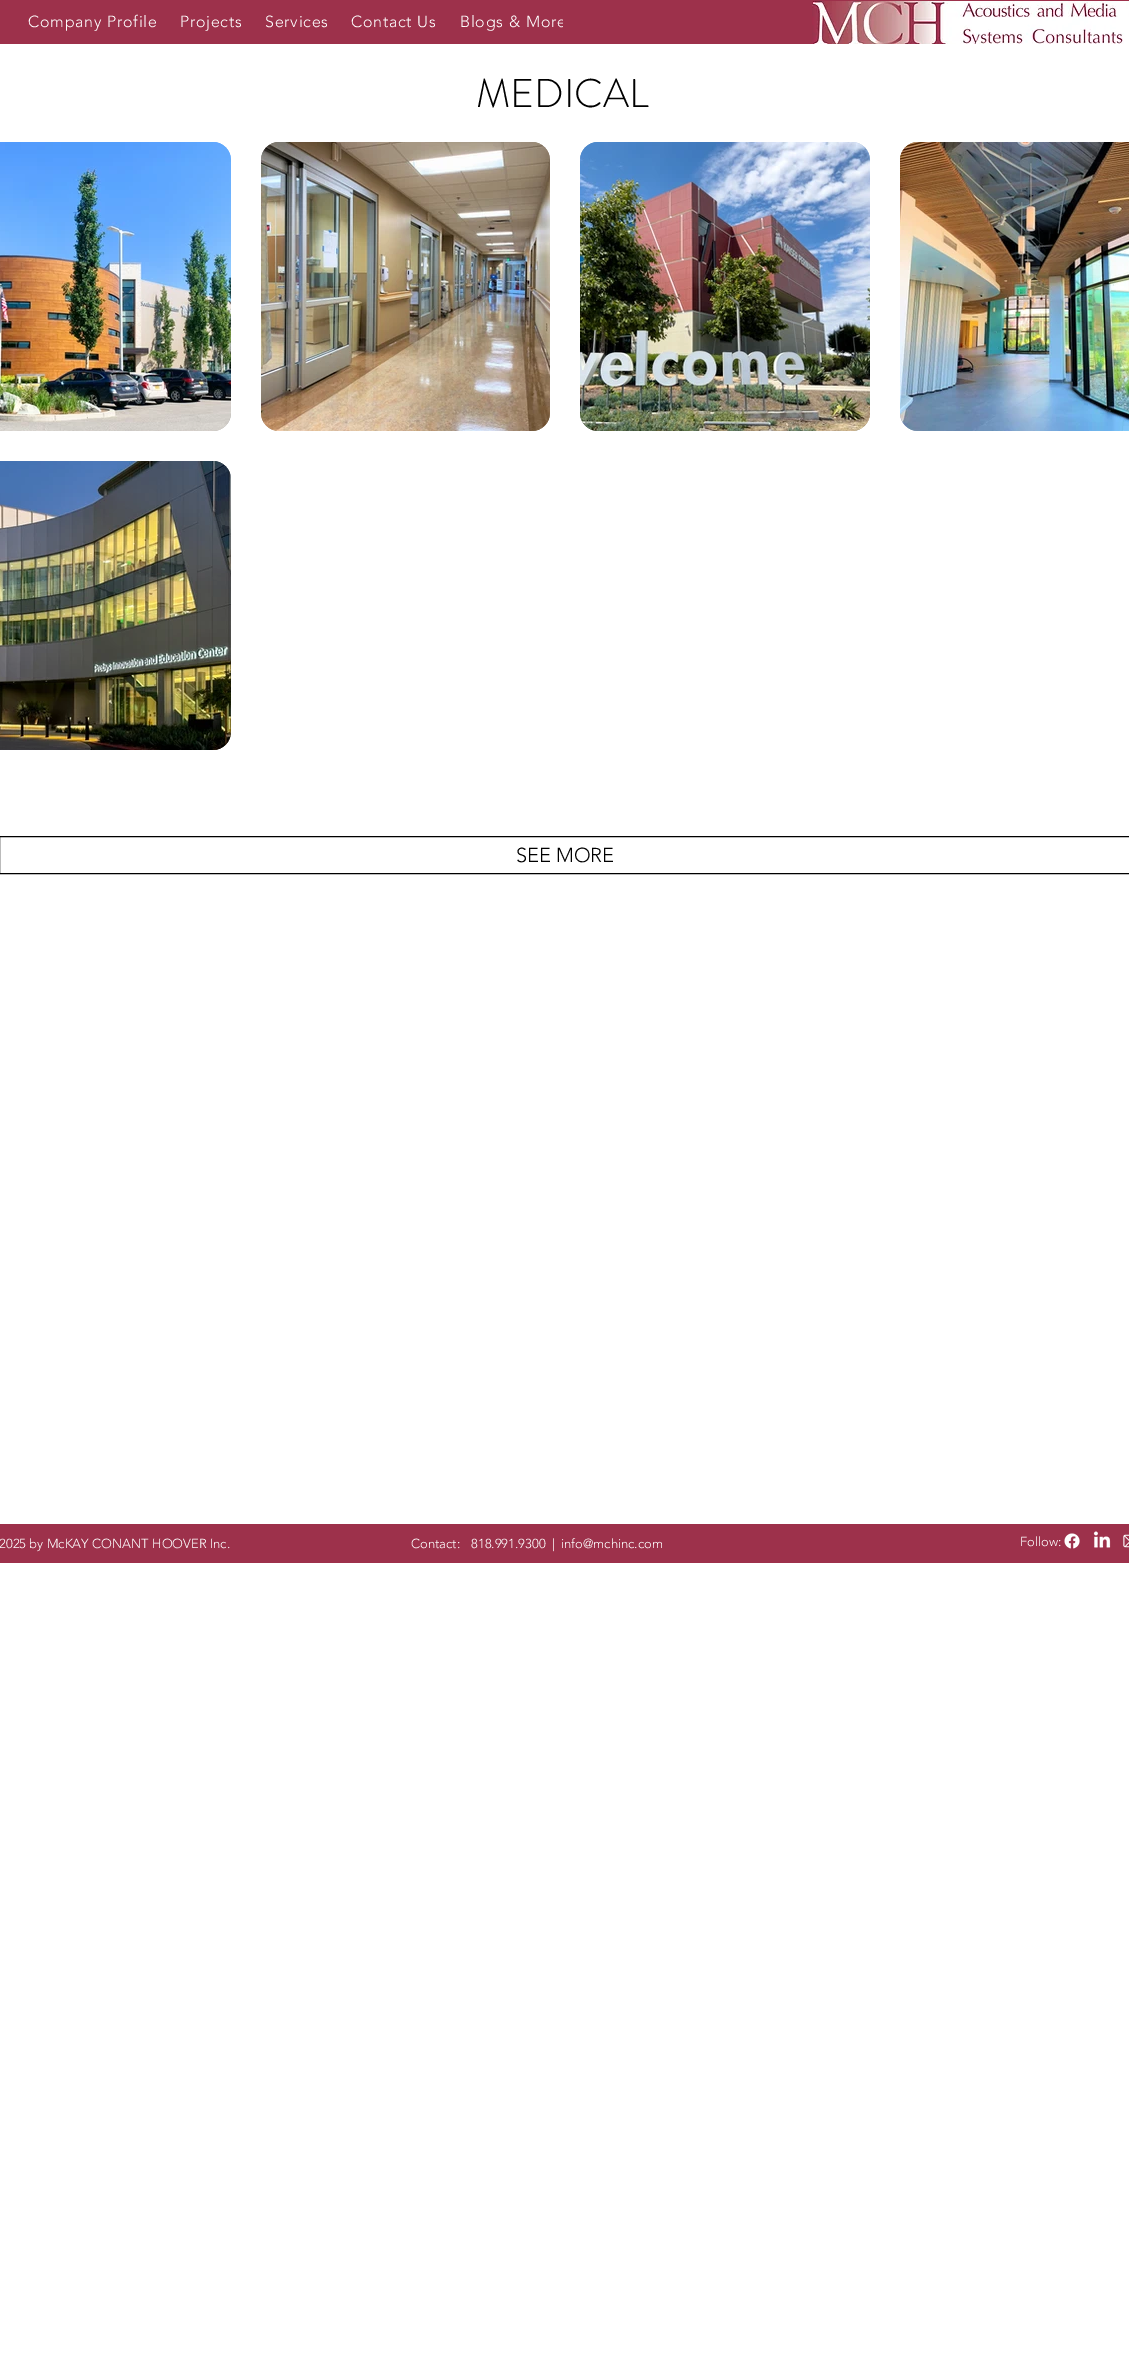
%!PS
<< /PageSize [1129 2373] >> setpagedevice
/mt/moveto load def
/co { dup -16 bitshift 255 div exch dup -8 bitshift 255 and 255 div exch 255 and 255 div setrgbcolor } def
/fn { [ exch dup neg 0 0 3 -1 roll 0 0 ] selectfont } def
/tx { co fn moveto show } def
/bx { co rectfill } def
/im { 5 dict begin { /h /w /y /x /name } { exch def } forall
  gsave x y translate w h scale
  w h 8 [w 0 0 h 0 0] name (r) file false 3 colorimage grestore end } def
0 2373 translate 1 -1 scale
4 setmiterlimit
0 0 1129 2373 16#FFFFFF bx
0 0 563 44 16#9D314B bx
(media/3.raw) 213 142 18 289 im
(media/2.raw) 0 142 231 289 im
(media/4.raw) 261 142 289 289 im
(media/5.raw) 261 142 289 289 im
(media/6.raw) 580 142 290 289 im
(media/7.raw) 580 142 290 289 im
(media/8.raw) 900 142 18 289 im
(media/9.raw) 900 142 229 289 im
(media/11.raw) 213 461 18 289 im
(media/10.raw) 0 461 231 289 im
16#000000 co
-.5 836.5 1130 37 rectstroke
0 1524 1129 39 16#9D314B bx
(media/12.raw) 1064 1533 16 16 im
(media/13.raw) 1093 1531 18 17 im
(media/14.raw) 1123 1534 6 14 im
/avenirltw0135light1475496-Light 16 fn
16#FFFFFF co
28 27 mt .75 0 (Company Profile) ashow
180 27 mt .75 0 (Projects) ashow
265 27 mt .75 0 (Services) ashow
351 27 mt .75 0 (Contact Us) ashow
460 27 mt .75 0 (Blogs & More) ashow
563 0 566 44 16#9D314B bx
(media/1.raw) 812 1 317 43 im
(MEDICAL) 476 107 /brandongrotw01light-Light 40 16#000000 tx
(SEE MORE) 516 862 /avenirltw0135light1475496-Light 20 16#000000 tx
(2025 by McKAY CONANT HOOVER Inc.) -1 1548 /avenirltw0135light1475496-Light 13 16#FFFFFF tx
(Contact:) 411 1548 /avenirltw0135light1475496-Light 13 16#FFFFFF tx
(818.991.9300  |) 471 1548 /avenirltw0135light1475496-Light 13 16#FFFFFF tx
(info@mchinc.com) 561 1548 /avenirltw0135light1475496-Light 13 16#FFFFFF tx
(Follow:) 1020 1546 /avenirltw0135light1475496-Light 13 16#FFFFFF tx
showpage
